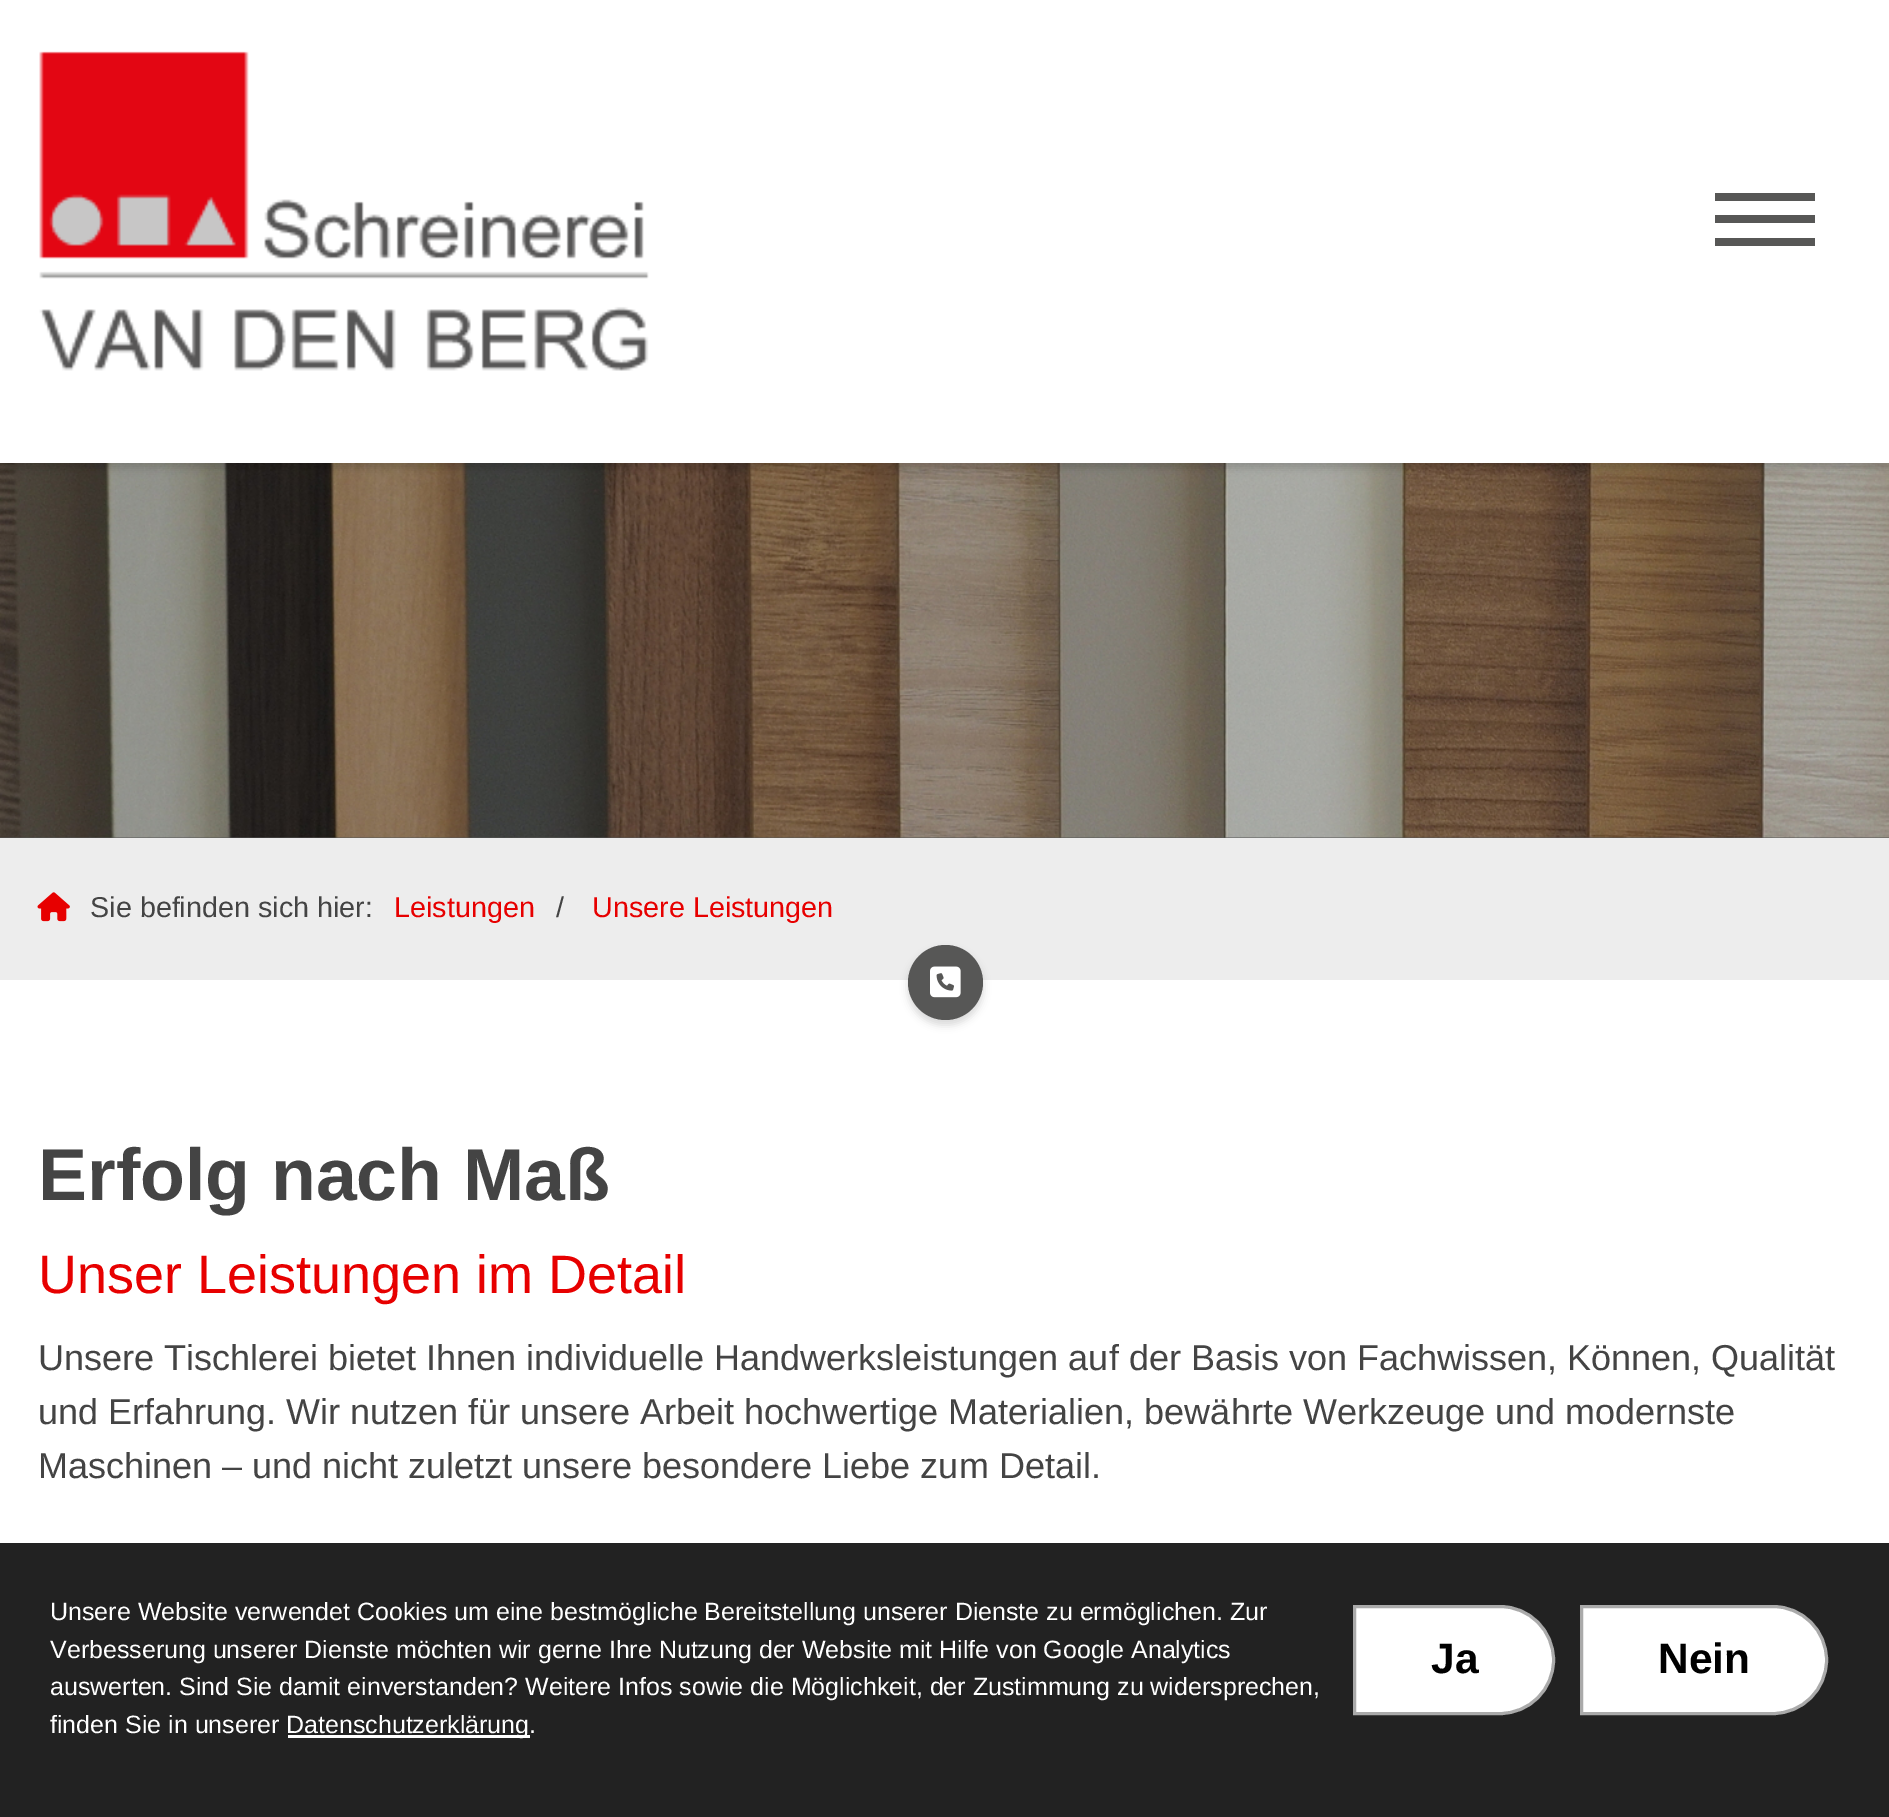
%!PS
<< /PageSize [1889 1817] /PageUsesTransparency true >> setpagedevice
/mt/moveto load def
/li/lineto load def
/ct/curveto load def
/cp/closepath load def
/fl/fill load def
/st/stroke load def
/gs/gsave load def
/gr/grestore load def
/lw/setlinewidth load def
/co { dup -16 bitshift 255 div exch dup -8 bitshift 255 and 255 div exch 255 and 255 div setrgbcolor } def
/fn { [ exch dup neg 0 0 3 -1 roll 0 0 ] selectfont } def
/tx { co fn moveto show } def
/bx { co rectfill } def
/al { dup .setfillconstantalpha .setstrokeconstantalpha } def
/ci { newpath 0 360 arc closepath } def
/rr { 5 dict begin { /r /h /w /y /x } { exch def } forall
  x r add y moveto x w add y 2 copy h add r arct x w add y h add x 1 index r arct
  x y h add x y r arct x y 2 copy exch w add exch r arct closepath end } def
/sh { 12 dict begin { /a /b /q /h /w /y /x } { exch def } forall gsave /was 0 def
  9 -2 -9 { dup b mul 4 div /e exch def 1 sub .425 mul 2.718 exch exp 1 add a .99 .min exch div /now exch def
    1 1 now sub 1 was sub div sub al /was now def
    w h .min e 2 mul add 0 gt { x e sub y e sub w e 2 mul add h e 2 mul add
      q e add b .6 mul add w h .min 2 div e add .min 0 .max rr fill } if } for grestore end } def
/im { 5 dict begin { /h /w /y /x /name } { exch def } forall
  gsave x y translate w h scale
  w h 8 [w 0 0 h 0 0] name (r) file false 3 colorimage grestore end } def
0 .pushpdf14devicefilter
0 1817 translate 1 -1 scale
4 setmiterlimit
0 0 1889 1817 16#FFFFFF bx
0 837 1889 1 16#575756 bx
(media/2.raw) 0 463 1889 375 im
16#000000 co
0 5 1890 463 0 4 .15 sh
0 0 1889 463 16#FFFFFF bx
(media/1.raw) 39 51 610 320 im
1715 215 100 8 16#575756 bx
1715 193 100 8 16#575756 bx
1715 238 100 8 16#575756 bx
0 838 1889 142 16#EDEDED bx
(media/3.raw) 37 892 33 30 im
16#000000 co
908 950 75 75 37.5 4 .15 sh
16#575756 co
945.5 982.5 37.5 ci fl
(media/4.raw) 930 966 31 32 im
0 1543 1889 274 16#222222 bx
288 1735 242 3 16#FFFFFF bx
1354.5 1606.5 mt 1500 1606.5 li 1529.5 1606.5 1553.5 1630.5 1553.5 1660 ct 1553.5 1689.5 1529.5 1713.5 1500 1713.5 ct 1354.5 1713.5 li cp gs fl gr
16#AAAAAA co
3 lw
st
16#FFFFFF co
1581.5 1606.5 mt 1773 1606.5 li 1802.5 1606.5 1826.5 1630.5 1826.5 1660 ct 1826.5 1689.5 1802.5 1713.5 1773 1713.5 ct 1581.5 1713.5 li cp gs fl gr
16#AAAAAA co
st
(Sie befinden sich hier:) 90 917 /LiberationSans-Regular 28.75 16#444444 tx
(Leistungen) 394 917 /LiberationSans-Regular 28.75 16#E70000 tx
(/) 556 917 /LiberationSans-Regular 28.75 16#444444 tx
(Unsere Leistungen) 592 917 /LiberationSans-Regular 28.75 16#E70000 tx
(Erfolg nach Maß) 38 1200 /LiberationSans-Bold 73.5 16#444444 tx
(Unser Leistungen im Detail) 38 1293 /LiberationSans-Regular 54 16#E70000 tx
(Unsere Tischlerei bietet Ihnen individuelle Handwerksleistungen auf der Basis von Fachwissen, Können, Qualität) 38 1370 /LiberationSans-Regular 36 16#444444 tx
(und Erfahrung. Wir nutzen für unsere Arbeit hochwertige Materialien, bewährte Werkzeuge und modernste) 38 1424 /LiberationSans-Regular 36 16#444444 tx
(Maschinen – und nicht zuletzt unsere besondere Liebe zum Detail.) 38 1478 /LiberationSans-Regular 36 16#444444 tx
(Unsere Website verwendet Cookies um eine bestmögliche Bereitstellung unserer Dienste zu ermöglichen. Zur) 50 1620 /LiberationSans-Regular 25 16#FFFFFF tx
(Verbesserung unserer Dienste möchten wir gerne Ihre Nutzung der Website mit Hilfe von Google Analytics) 50 1658 /LiberationSans-Regular 25 16#FFFFFF tx
(auswerten. Sind Sie damit einverstanden? Weitere Infos sowie die Möglichkeit, der Zustimmung zu widersprechen,) 50 1695 /LiberationSans-Regular 25 16#FFFFFF tx
(finden Sie in unserer) 50 1733 /LiberationSans-Regular 25 16#FFFFFF tx
(Datenschutzerklärung.) 286 1733 /LiberationSans-Regular 25 16#FFFFFF tx
(Ja) 1431 1673 /LiberationSans-Bold 42.5 16#000000 tx
(Nein) 1658 1673 /LiberationSans-Bold 42.5 16#000000 tx
.poppdf14devicefilter showpage
